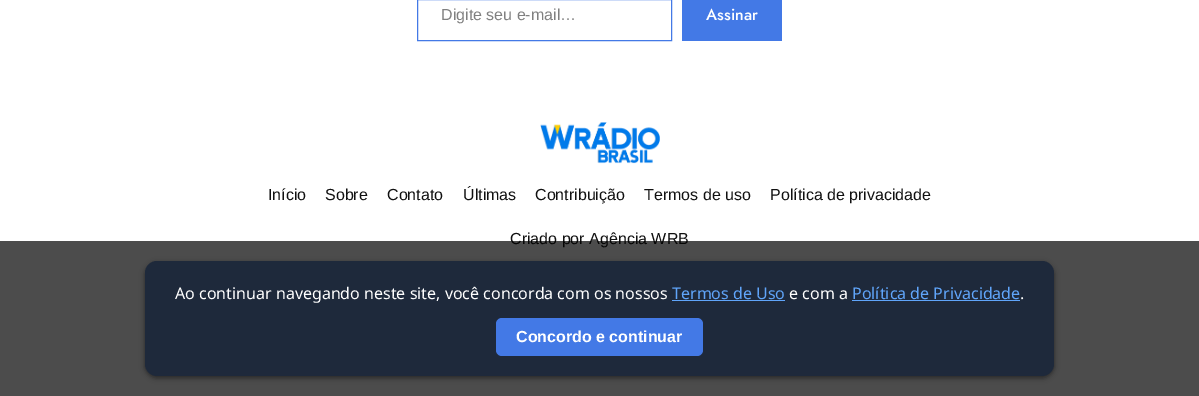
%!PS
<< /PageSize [1199 396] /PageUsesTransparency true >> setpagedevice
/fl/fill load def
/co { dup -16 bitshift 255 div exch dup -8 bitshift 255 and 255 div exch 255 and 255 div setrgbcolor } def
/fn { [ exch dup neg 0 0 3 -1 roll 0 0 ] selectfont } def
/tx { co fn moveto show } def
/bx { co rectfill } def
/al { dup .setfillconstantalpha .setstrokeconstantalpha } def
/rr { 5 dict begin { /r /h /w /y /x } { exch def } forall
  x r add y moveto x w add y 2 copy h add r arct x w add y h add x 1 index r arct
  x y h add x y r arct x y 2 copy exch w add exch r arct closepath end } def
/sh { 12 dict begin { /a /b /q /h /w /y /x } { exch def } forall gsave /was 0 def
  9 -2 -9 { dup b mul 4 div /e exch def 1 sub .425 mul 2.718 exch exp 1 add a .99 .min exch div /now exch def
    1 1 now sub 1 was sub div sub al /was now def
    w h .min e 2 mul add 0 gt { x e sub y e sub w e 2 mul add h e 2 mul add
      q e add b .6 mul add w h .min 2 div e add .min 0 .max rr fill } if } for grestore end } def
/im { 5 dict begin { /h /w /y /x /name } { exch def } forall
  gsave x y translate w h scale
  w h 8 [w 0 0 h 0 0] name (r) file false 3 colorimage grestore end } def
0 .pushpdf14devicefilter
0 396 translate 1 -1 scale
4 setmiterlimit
0 0 1199 396 16#FFFFFF bx
16#4379E6 co
417.5 -.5 254 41 rectstroke
682 0 100 41 16#4379E6 bx
(media/1.raw) 540 122 120 42 im
(Digite seu e-mail…) 441 20 /LiberationSans-Regular 16 16#808080 tx
(Assinar) 706 20 /Jost-Medium 16 16#FFFFFF tx
(Início) 268 200 /LiberationSans-Regular 16 16#111111 tx
(Sobre) 325 200 /LiberationSans-Regular 16 16#111111 tx
(Contato) 387 200 /LiberationSans-Regular 16 16#111111 tx
(Últimas) 463 200 /LiberationSans-Regular 16 16#111111 tx
(Contribuição) 535 200 /LiberationSans-Regular 16 16#111111 tx
(Termos de uso) 644 200 /LiberationSans-Regular 16 16#111111 tx
(Política de privacidade) 770 200 /LiberationSans-Regular 16 16#111111 tx
(Criado por Agência WRB) 510 244 /LiberationSans-Regular 16 16#111111 tx
0.7 al
0 241 1199 155 16#000000 bx
1 al
145 263 909 115 12 3 .5 sh
16#1E293B co
145 261 909 115 12 rr fl
(Ao continuar navegando neste site, você concorda com os nossos) 175 299 /NotoSans-Regular 16 16#FFFFFF tx
(Termos de Uso) 672 299 /NotoSans-Regular 16 16#60A5FA tx
672 300 113 1 16#60A5FA bx
(e com a) 789 299 /NotoSans-Regular 16 16#FFFFFF tx
(Política de Privacidade) 852 299 /NotoSans-Regular 16 16#60A5FA tx
852 300 168 1 16#60A5FA bx
(.) 1020 299 /NotoSans-Regular 16 16#FFFFFF tx
16#4379E6 co
496 318 207 38 6 rr fl
(Concordo e continuar) 516 342 /LiberationSans-Bold 16 16#FFFFFF tx
.poppdf14devicefilter showpage
